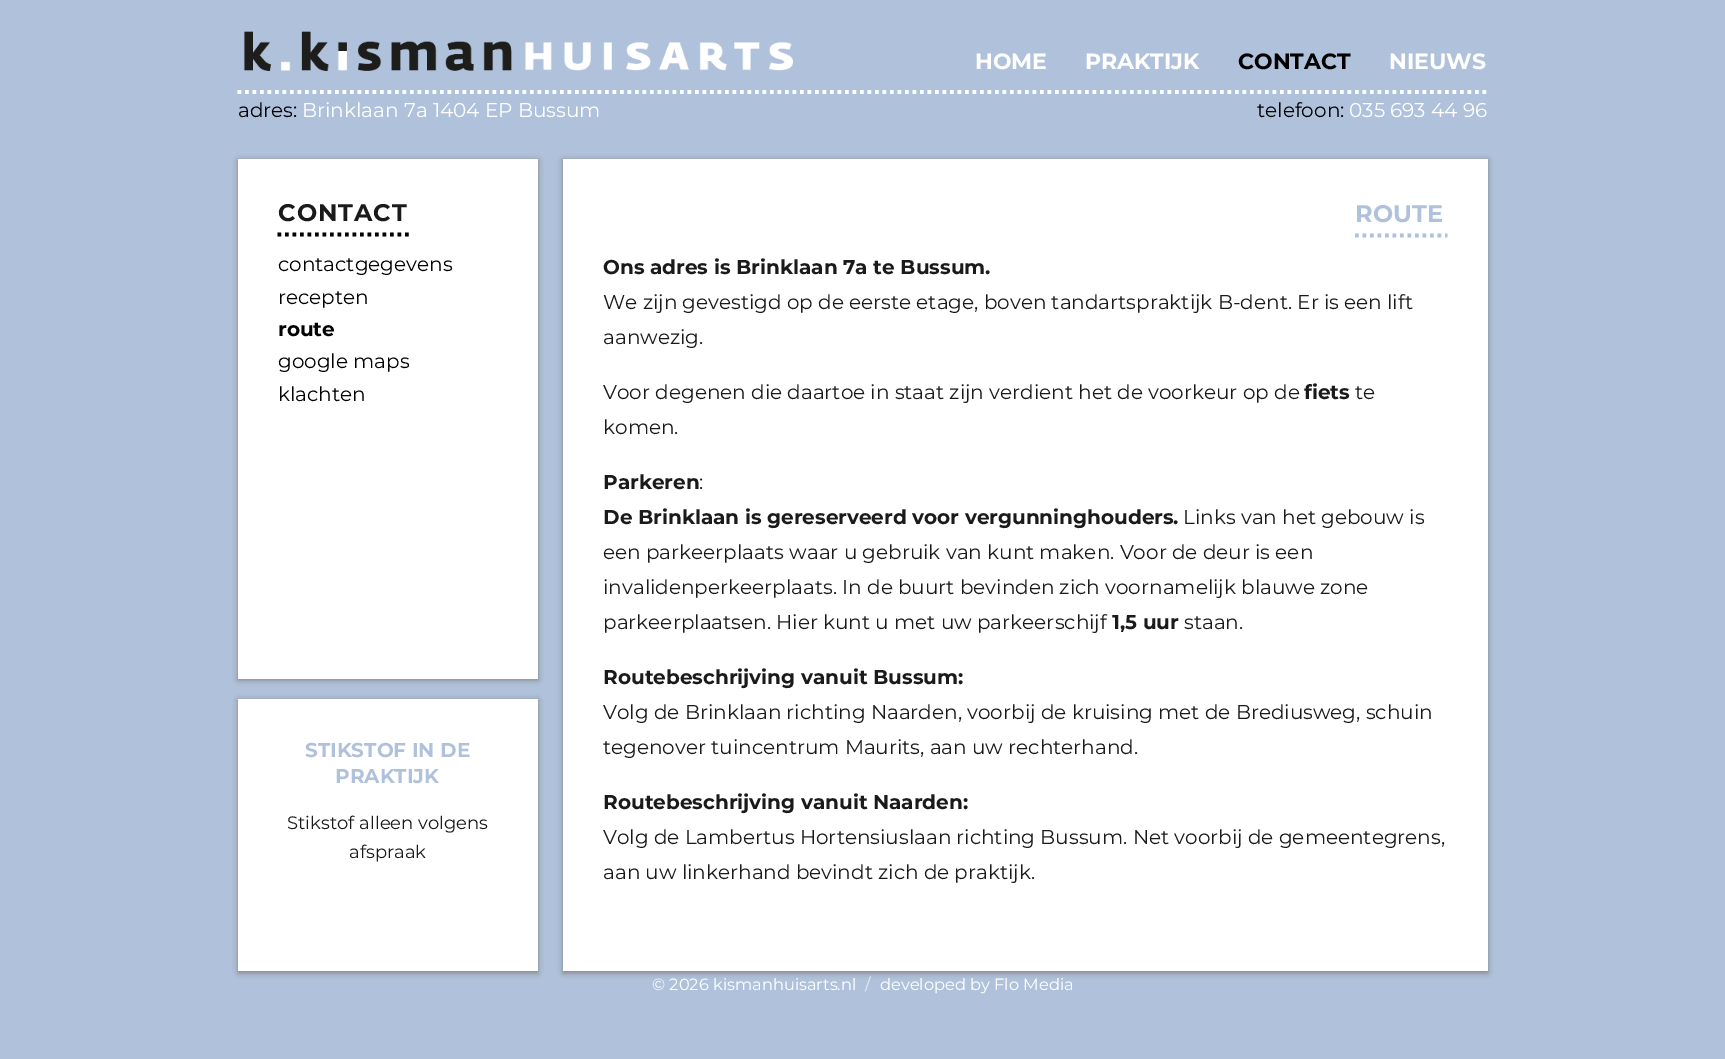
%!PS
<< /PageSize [1725 1059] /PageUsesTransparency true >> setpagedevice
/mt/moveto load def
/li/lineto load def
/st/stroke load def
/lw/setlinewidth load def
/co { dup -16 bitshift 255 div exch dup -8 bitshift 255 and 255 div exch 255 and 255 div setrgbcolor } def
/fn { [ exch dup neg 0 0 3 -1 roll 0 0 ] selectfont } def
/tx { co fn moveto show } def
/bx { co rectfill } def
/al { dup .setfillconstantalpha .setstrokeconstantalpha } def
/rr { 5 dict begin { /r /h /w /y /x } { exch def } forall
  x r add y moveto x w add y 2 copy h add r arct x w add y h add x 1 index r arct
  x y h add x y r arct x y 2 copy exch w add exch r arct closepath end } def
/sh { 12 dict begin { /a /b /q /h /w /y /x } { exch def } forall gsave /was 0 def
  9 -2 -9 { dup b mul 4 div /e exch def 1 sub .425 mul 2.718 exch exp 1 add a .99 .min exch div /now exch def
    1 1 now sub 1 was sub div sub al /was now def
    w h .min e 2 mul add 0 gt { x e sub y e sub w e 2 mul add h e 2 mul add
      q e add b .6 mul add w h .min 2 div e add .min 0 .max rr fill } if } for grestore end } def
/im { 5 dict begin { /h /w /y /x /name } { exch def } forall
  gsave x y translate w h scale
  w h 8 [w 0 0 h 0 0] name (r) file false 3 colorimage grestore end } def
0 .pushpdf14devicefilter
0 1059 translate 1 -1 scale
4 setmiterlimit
0 0 1725 1059 16#B0C2DB bx
16#FFFFFF co
3.8 lw
[3.75 3.75] 0 setdash
237.5 92 mt 1487.5 92 li st
(media/1.raw) 243 31 550 40 im
16#808080 co
238 160 300 520 0 3 1 sh
238 159 300 520 16#FFFFFF bx
16#000000 co
277.5 234.5 mt 412.5 234.5 li st
16#808080 co
238 700 300 273 0 3 1 sh
238 699 300 272 16#FFFFFF bx
16#808080 co
563 160 925 813 0 3 1 sh
563 159 925 812 16#FFFFFF bx
16#B0C2DB co
1355 235.5 mt 1447.5 235.5 li st
(HOME) 975 69 /Montserrat-Thin 22 16#FFFFFF tx
(PRAKTIJK) 1085 69 /Montserrat-Thin 22 16#FFFFFF tx
(CONTACT) 1238 69 /Montserrat-Thin 22 16#000000 tx
(NIEUWS) 1389 69 /Montserrat-Thin 22 16#FFFFFF tx
(adres:) 238 117 /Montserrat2-Thin 20 16#000000 tx
(Brinklaan 7a 1404 EP Bussum) 302 117 /Montserrat2-Thin 20 16#FFFFFF tx
(telefoon:) 1257 117 /Montserrat2-Thin 20 16#000000 tx
(035 693 44 96) 1349 117 /Montserrat2-Thin 20 16#FFFFFF tx
/Montserrat-Thin 24 fn
16#1A1A1A co
278 221 mt 1 0 (CONTACT) ashow
(contactgegevens) 278 271 /Montserrat2-Thin 20 16#000000 tx
(recepten) 278 304 /Montserrat2-Thin 20 16#000000 tx
(route) 278 336 /Montserrat-Thin 20 16#000000 tx
(google maps) 278 368 /Montserrat2-Thin 20 16#000000 tx
(klachten) 278 401 /Montserrat2-Thin 20 16#000000 tx
(STIKSTOF IN DE) 305 757 /Montserrat-Thin 20 16#B0C2DB tx
(PRAKTIJK) 335 783 /Montserrat-Thin 20 16#B0C2DB tx
(Stikstof alleen volgens) 287 829 /Montserrat2-Thin 18 16#1A1A1A tx
(afspraak) 349 858 /Montserrat2-Thin 18 16#1A1A1A tx
(ROUTE) 1355 222 /Montserrat-Thin 24 16#B0C2DB tx
(Ons adres is Brinklaan 7a te Bussum.) 603 274 /Montserrat-Thin 20 16#1A1A1A tx
(We zijn gevestigd op de eerste etage, boven tandartspraktijk B-dent. Er is een lift) 603 309 /Montserrat2-Thin 20 16#1A1A1A tx
(aanwezig.) 603 344 /Montserrat2-Thin 20 16#1A1A1A tx
(Voor degenen die daartoe in staat zijn verdient het de voorkeur op de) 603 399 /Montserrat2-Thin 20 16#1A1A1A tx
(fiets) 1304 399 /Montserrat-Thin 20 16#1A1A1A tx
(te) 1355 399 /Montserrat2-Thin 20 16#1A1A1A tx
(komen.) 603 434 /Montserrat2-Thin 20 16#1A1A1A tx
(Parkeren) 603 489 /Montserrat-Thin 20 16#1A1A1A tx
(:) 699 489 /Montserrat2-Thin 20 16#1A1A1A tx
(De Brinklaan is gereserveerd voor vergunninghouders.) 603 524 /Montserrat-Thin 20 16#1A1A1A tx
(Links van het gebouw is) 1183 524 /Montserrat2-Thin 20 16#1A1A1A tx
(een parkeerplaats waar u gebruik van kunt maken. Voor de deur is een) 603 559 /Montserrat2-Thin 20 16#1A1A1A tx
(invalidenperkeerplaats. In de buurt bevinden zich voornamelijk blauwe zone) 603 594 /Montserrat2-Thin 20 16#1A1A1A tx
(parkeerplaatsen. Hier kunt u met uw parkeerschijf) 603 629 /Montserrat2-Thin 20 16#1A1A1A tx
(1,5 uur) 1112 629 /Montserrat-Thin 20 16#1A1A1A tx
(staan.) 1184 629 /Montserrat2-Thin 20 16#1A1A1A tx
(Routebeschrijving vanuit Bussum:) 603 684 /Montserrat-Thin 20 16#1A1A1A tx
(Volg de Brinklaan richting Naarden, voorbij de kruising met de Brediusweg, schuin) 603 719 /Montserrat2-Thin 20 16#1A1A1A tx
(tegenover tuincentrum Maurits, aan uw rechterhand.) 603 754 /Montserrat2-Thin 20 16#1A1A1A tx
(Routebeschrijving vanuit Naarden:) 603 809 /Montserrat-Thin 20 16#1A1A1A tx
(Volg de Lambertus Hortensiuslaan richting Bussum. Net voorbij de gemeentegrens,) 603 844 /Montserrat2-Thin 20 16#1A1A1A tx
(aan uw linkerhand bevindt zich de praktijk.) 603 879 /Montserrat2-Thin 20 16#1A1A1A tx
(© 2026 kismanhuisarts.nl) 652 990 /Montserrat2-Thin 16.25 16#FFFFFF tx
(/) 865 990 /Montserrat2-Thin 16.25 16#E7ECF4 tx
(developed by Flo Media) 880 990 /Montserrat2-Thin 16.25 16#FFFFFF tx
.poppdf14devicefilter showpage
